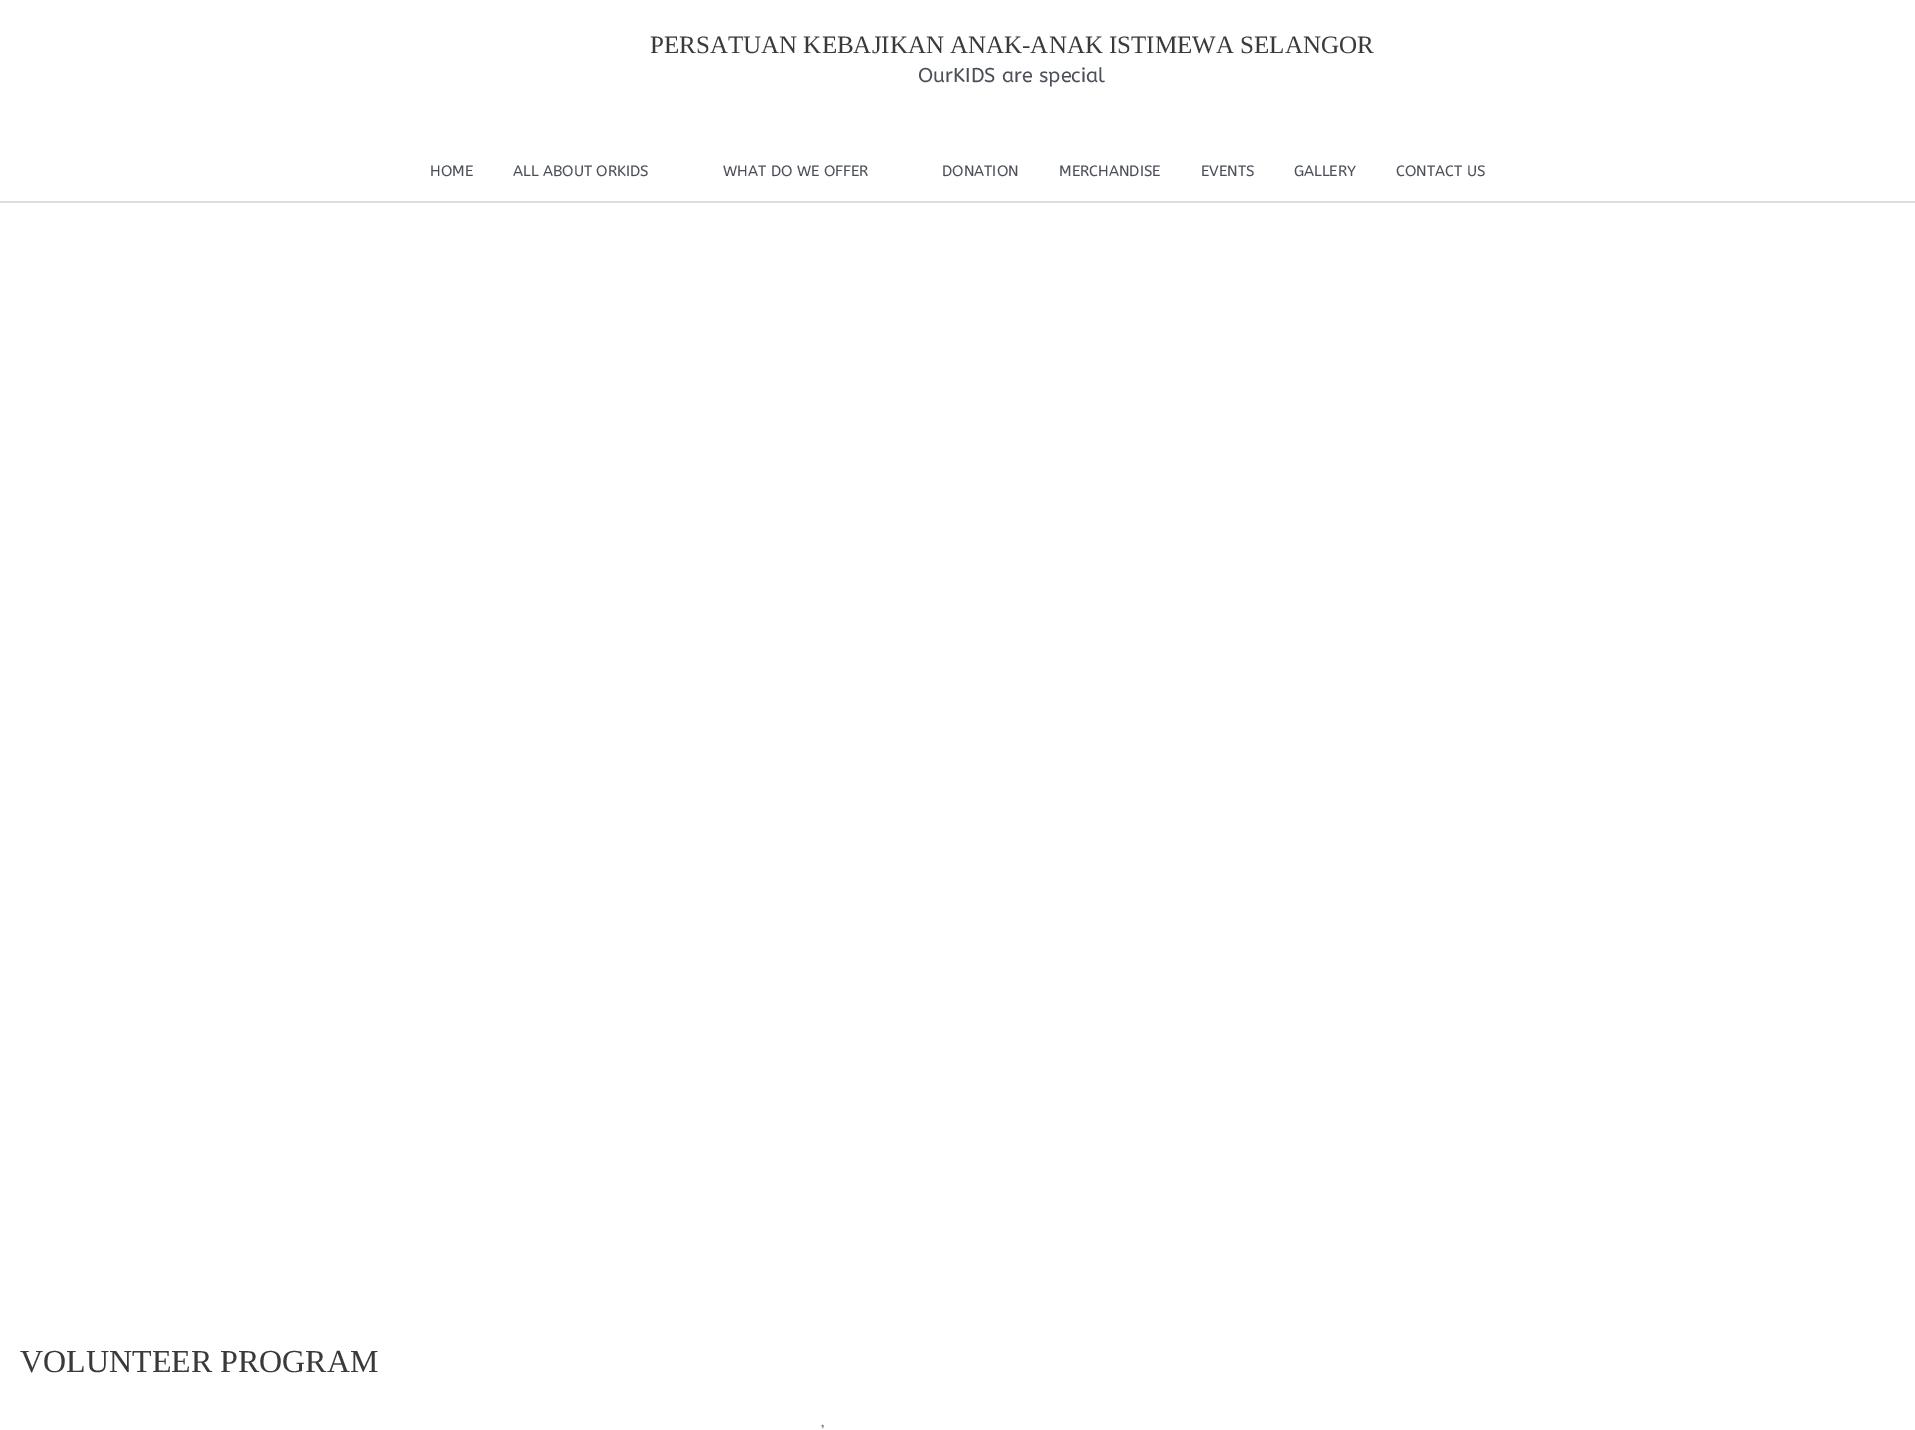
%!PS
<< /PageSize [1915 1430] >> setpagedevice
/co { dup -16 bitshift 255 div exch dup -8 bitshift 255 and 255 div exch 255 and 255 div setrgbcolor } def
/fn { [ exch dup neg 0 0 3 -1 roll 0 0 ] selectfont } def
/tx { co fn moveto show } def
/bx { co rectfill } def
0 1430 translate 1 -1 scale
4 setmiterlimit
0 0 1915 1430 16#FFFFFF bx
0 201 1915 2 16#DDDDDD bx
(PERSATUAN KEBAJIKAN ANAK-ANAK ISTIMEWA SELANGOR) 650 53 /LiberationSerif-Regular 25 16#3A3A3A tx
(OurKIDS are special) 918 82 /ABeeZee-Regular 20 16#4B4F58 tx
(HOME) 430 176 /ABeeZee-Regular 15 16#4B4F58 tx
(ALL ABOUT ORKIDS) 513 176 /ABeeZee-Regular 15 16#4B4F58 tx
(WHAT DO WE OFFER) 723 176 /ABeeZee-Regular 15 16#4B4F58 tx
(DONATION) 942 176 /ABeeZee-Regular 15 16#4B4F58 tx
(MERCHANDISE) 1059 176 /ABeeZee-Regular 15 16#4B4F58 tx
(EVENTS) 1201 176 /ABeeZee-Regular 15 16#4B4F58 tx
(GALLERY) 1294 176 /ABeeZee-Regular 15 16#4B4F58 tx
(CONTACT US) 1396 176 /ABeeZee-Regular 15 16#4B4F58 tx
(VOLUNTEER PROGRAM) 20 1372 /LiberationSerif-Regular 32 16#3A3A3A tx
(’) 821 1436 /ABeeZee-Regular 15 16#7A7A7A tx
showpage
